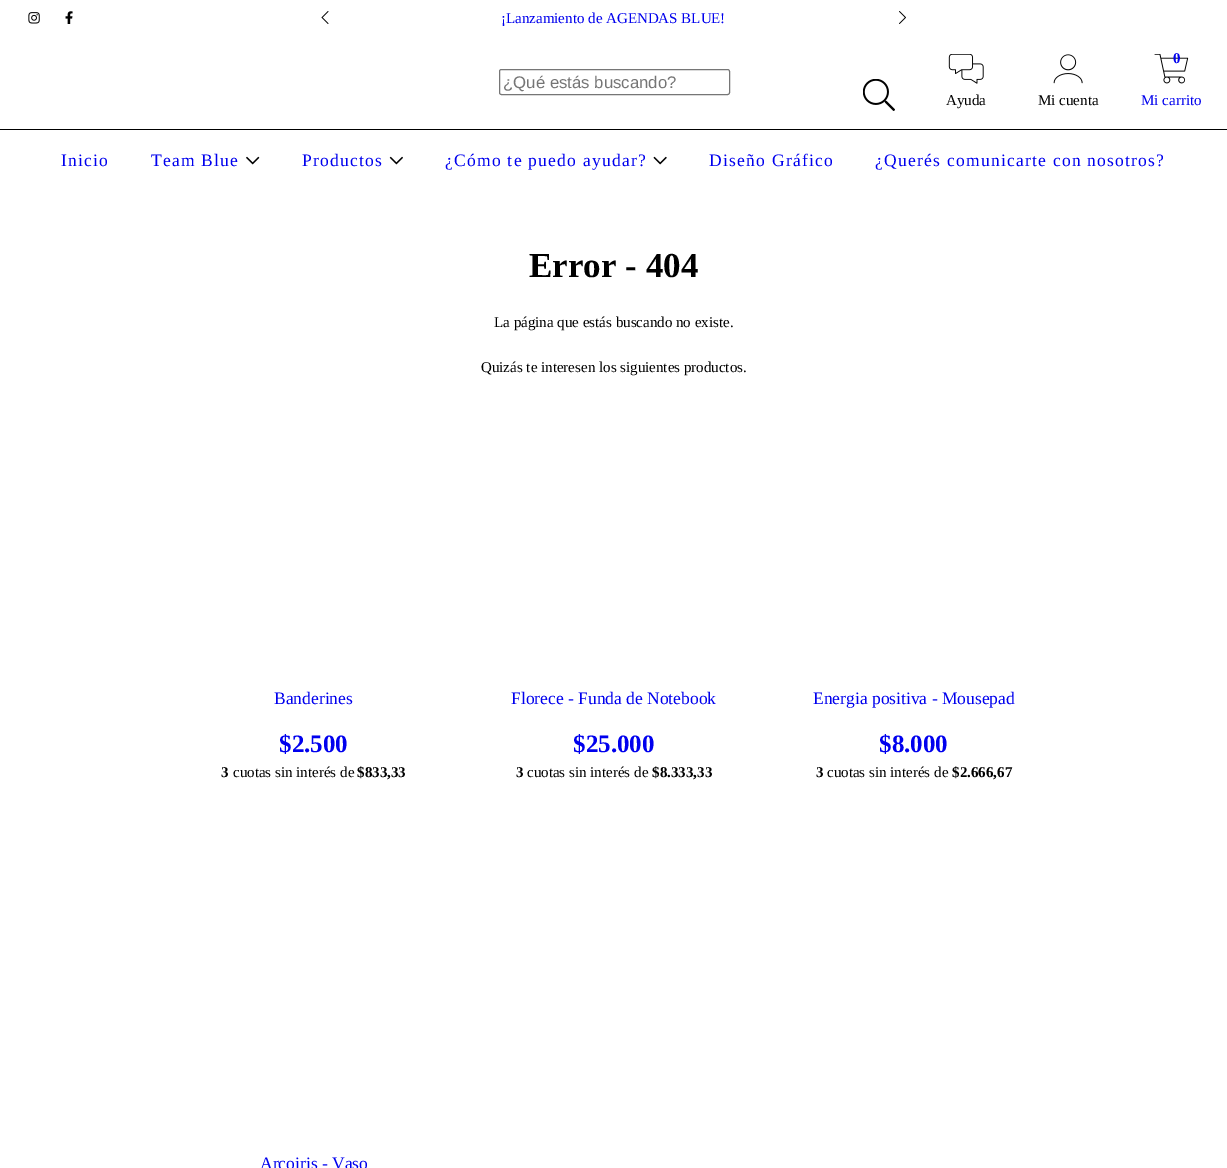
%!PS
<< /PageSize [1227 1168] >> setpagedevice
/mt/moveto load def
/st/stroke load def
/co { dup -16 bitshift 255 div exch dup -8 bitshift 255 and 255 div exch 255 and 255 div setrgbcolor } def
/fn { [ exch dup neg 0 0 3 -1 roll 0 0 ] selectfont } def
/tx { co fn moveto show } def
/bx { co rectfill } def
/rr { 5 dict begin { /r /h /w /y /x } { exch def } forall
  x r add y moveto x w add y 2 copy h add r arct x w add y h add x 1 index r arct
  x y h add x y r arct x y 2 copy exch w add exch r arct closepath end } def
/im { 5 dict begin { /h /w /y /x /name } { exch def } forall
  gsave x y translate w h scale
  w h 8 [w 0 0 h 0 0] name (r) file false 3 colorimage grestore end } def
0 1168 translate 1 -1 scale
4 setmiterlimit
0 0 1227 1168 16#FFFFFF bx
(media/1.raw) 28 12 12 12 im
(media/2.raw) 65 11 8 13 im
(media/3.raw) 321 11 8 13 im
(media/4.raw) 899 11 7 13 im
16#767676 co
499.5 69.5 230 25 2 rr st
(media/5.raw) 863 79 32 32 im
(media/6.raw) 948 54 36 30 im
(media/7.raw) 1053 54 30 30 im
(media/8.raw) 1154 54 35 30 im
0 129 1227 1 16#000000 bx
(media/9.raw) 246 156 14 9 im
(media/10.raw) 389 156 14 9 im
(media/11.raw) 653 156 14 9 im
(¡Lanzamiento de AGENDAS BLUE!) 501 23 /LiberationSerif-Regular 15 16#0000EE tx
(¿Qué estás buscando?) 503 88 /LiberationSans-Regular 16.75 16#757575 tx
(Ayuda) 946 105 /LiberationSerif-Regular 15 16#000000 tx
(Mi cuenta) 1038 105 /LiberationSerif-Regular 15 16#000000 tx
(0) 1173 63 /LiberationSerif-Bold 15 16#0000EE tx
(Mi carrito) 1141 105 /LiberationSerif-Regular 15 16#0000EE tx
/LiberationSerif-Regular 17.5 fn
61 166 mt 1.25 0 (Inicio) ashow
151 166 mt 1.25 0 (Team Blue) ashow
302 166 mt 1.25 0 (Productos) ashow
445 166 mt 1.25 0 (¿Cómo te puedo ayudar?) ashow
709 166 mt 1.25 0 (Diseño Gráfico) ashow
875 166 mt 1.25 0 (¿Querés comunicarte con nosotros?) ashow
(Error - 404) 529 277 /LiberationSerif-Bold 35 16#000000 tx
(La página que estás buscando no existe.) 494 327 /LiberationSerif-Regular 15 16#000000 tx
(Quizás te interesen los siguientes productos.) 481 372 /LiberationSerif-Regular 15 16#000000 tx
(Banderines) 274 704 /LiberationSerif-Regular 17.5 16#0000EE tx
($2.500) 279 752 /LiberationSerif-Bold 25 16#0000EE tx
(3) 221 777 /LiberationSerif-Bold 15 16#000000 tx
(cuotas sin interés de) 233 777 /LiberationSerif-Regular 15 16#000000 tx
($833,33) 357 777 /LiberationSerif-Bold 15 16#000000 tx
(Florece - Funda de Notebook) 511 704 /LiberationSerif-Regular 17.5 16#0000EE tx
($25.000) 573 752 /LiberationSerif-Bold 25 16#0000EE tx
(3) 516 777 /LiberationSerif-Bold 15 16#000000 tx
(cuotas sin interés de) 527 777 /LiberationSerif-Regular 15 16#000000 tx
($8.333,33) 652 777 /LiberationSerif-Bold 15 16#000000 tx
(Energia positiva - Mousepad) 813 704 /LiberationSerif-Regular 17.5 16#0000EE tx
($8.000) 879 752 /LiberationSerif-Bold 25 16#0000EE tx
(3) 816 777 /LiberationSerif-Bold 15 16#000000 tx
(cuotas sin interés de) 827 777 /LiberationSerif-Regular 15 16#000000 tx
($2.666,67) 952 777 /LiberationSerif-Bold 15 16#000000 tx
(Arcoiris - Vaso) 260 1169 /LiberationSerif-Regular 17.5 16#0000EE tx
showpage
